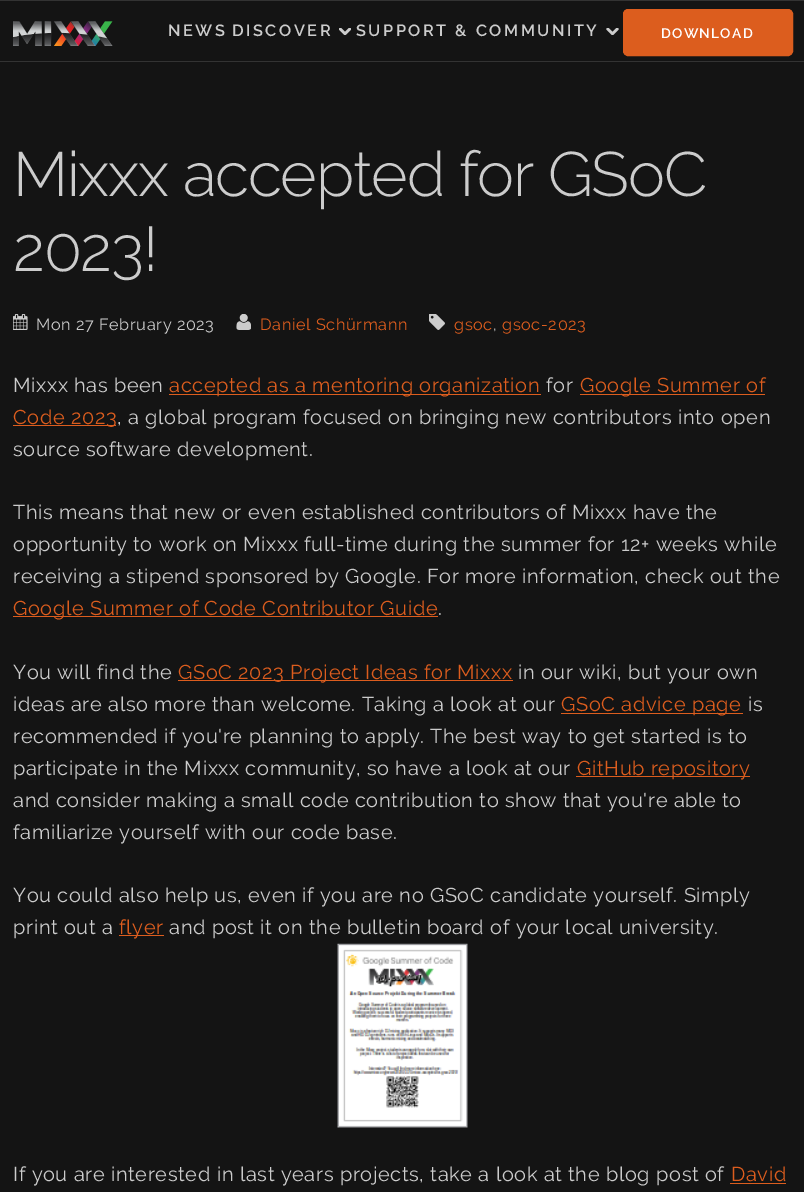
%!PS
<< /PageSize [804 1192] >> setpagedevice
/mt/moveto load def
/fl/fill load def
/st/stroke load def
/gs/gsave load def
/gr/grestore load def
/co { dup -16 bitshift 255 div exch dup -8 bitshift 255 and 255 div exch 255 and 255 div setrgbcolor } def
/fn { [ exch dup neg 0 0 3 -1 roll 0 0 ] selectfont } def
/bx { co rectfill } def
/rr { 5 dict begin { /r /h /w /y /x } { exch def } forall
  x r add y moveto x w add y 2 copy h add r arct x w add y h add x 1 index r arct
  x y h add x y r arct x y 2 copy exch w add exch r arct closepath end } def
/im { 5 dict begin { /h /w /y /x /name } { exch def } forall
  gsave x y translate w h scale
  w h 8 [w 0 0 h 0 0] name (r) file false 3 colorimage grestore end } def
0 1192 translate 1 -1 scale
4 setmiterlimit
0 0 804 1192 16#141414 bx
0 0 804 1 16#333333 bx
0 61 804 1 16#333333 bx
(media/1.raw) 13 21 100 25 im
(media/2.raw) 339 28 12 7 im
(media/3.raw) 606 28 13 7 im
16#DC5D1E co
623.5 9.5 169 46 4.5 rr gs fl gr
st
(media/4.raw) 13 314 15 16 im
(media/5.raw) 236 314 15 16 im
(media/6.raw) 429 314 16 16 im
169 394 372 1 16#DC5D1E bx
580 394 185 1 16#DC5D1E bx
13 425 103 1 16#DC5D1E bx
13 616 425 1 16#DC5D1E bx
178 680 335 1 16#DC5D1E bx
561 713 182 1 16#DC5D1E bx
576 776 174 1 16#DC5D1E bx
119 935 45 1 16#DC5D1E bx
(media/7.raw) 337 943 131 185 im
730 1183 56 1 16#DC5D1E bx
/Raleway-SemiBold 16.25 fn
16#CCCCCC co
168 36 mt 2.5 0 (NEWS) ashow
232 36 mt 2.5 0 (DISCOVER) ashow
356 36 mt 2.5 0 (SUPPORT & COMMUNITY) ashow
/Raleway-SemiBold 13.75 fn
16#FFFFFF co
661 38 mt 1.25 0 (DOWNLOAD) ashow
/Raleway-Light 62.5 fn
16#CCCCCC co
13 196 mt -1.25 0 (Mixxx accepted for GSoC) ashow
13 271 mt -1.25 0 (2023!) ashow
/Raleway-Regular 16.25 fn
36 330 mt .62 0 (Mon 27 February 2023) ashow
16#DC5D1E co
260 330 mt .62 0 (Daniel Schürmann) ashow
454 330 mt .62 0 (gsoc) ashow
16#CCCCCC co
493 330 mt .62 0 (,) ashow
16#DC5D1E co
502 330 mt .62 0 (gsoc-2023) ashow
/Raleway-Regular 20 fn
16#CCCCCC co
13 392 mt .62 0 (Mixxx has been) ashow
16#DC5D1E co
169 392 mt .62 0 (accepted as a mentoring organization) ashow
16#CCCCCC co
546 392 mt .62 0 (for) ashow
16#DC5D1E co
580 392 mt .62 0 (Google Summer of) ashow
13 424 mt .62 0 (Code 2023) ashow
16#CCCCCC co
117 424 mt .62 0 (, a global program focused on bringing new contributors into open) ashow
13 456 mt .62 0 (source software development.) ashow
13 519 mt .62 0 (This means that new or even established contributors of Mixxx have the) ashow
13 551 mt .62 0 (opportunity to work on Mixxx full-time during the summer for 12+ weeks while) ashow
13 583 mt .62 0 (receiving a stipend sponsored by Google. For more information, check out the) ashow
16#DC5D1E co
13 615 mt .62 0 (Google Summer of Code Contributor Guide) ashow
16#CCCCCC co
438 615 mt .62 0 (.) ashow
13 679 mt .62 0 (You will find the) ashow
16#DC5D1E co
178 679 mt .62 0 (GSoC 2023 Project Ideas for Mixxx) ashow
16#CCCCCC co
518 679 mt .62 0 (in our wiki, but your own) ashow
13 711 mt .62 0 (ideas are also more than welcome. Taking a look at our) ashow
16#DC5D1E co
561 711 mt .62 0 (GSoC advice page) ashow
16#CCCCCC co
748 711 mt .62 0 (is) ashow
13 743 mt .62 0 (recommended if you're planning to apply. The best way to get started is to) ashow
13 775 mt .62 0 (participate in the Mixxx community, so have a look at our) ashow
16#DC5D1E co
577 775 mt .62 0 (GitHub repository) ashow
16#CCCCCC co
13 807 mt .62 0 (and consider making a small code contribution to show that you're able to) ashow
13 839 mt .62 0 (familiarize yourself with our code base.) ashow
13 902 mt .62 0 (You could also help us, even if you are no GSoC candidate yourself. Simply) ashow
13 934 mt .62 0 (print out a) ashow
16#DC5D1E co
119 934 mt .62 0 (flyer) ashow
16#CCCCCC co
169 934 mt .62 0 (and post it on the bulletin board of your local university.) ashow
13 1181 mt .62 0 (If you are interested in last years projects, take a look at the blog post of) ashow
16#DC5D1E co
731 1181 mt .62 0 (David) ashow
showpage
